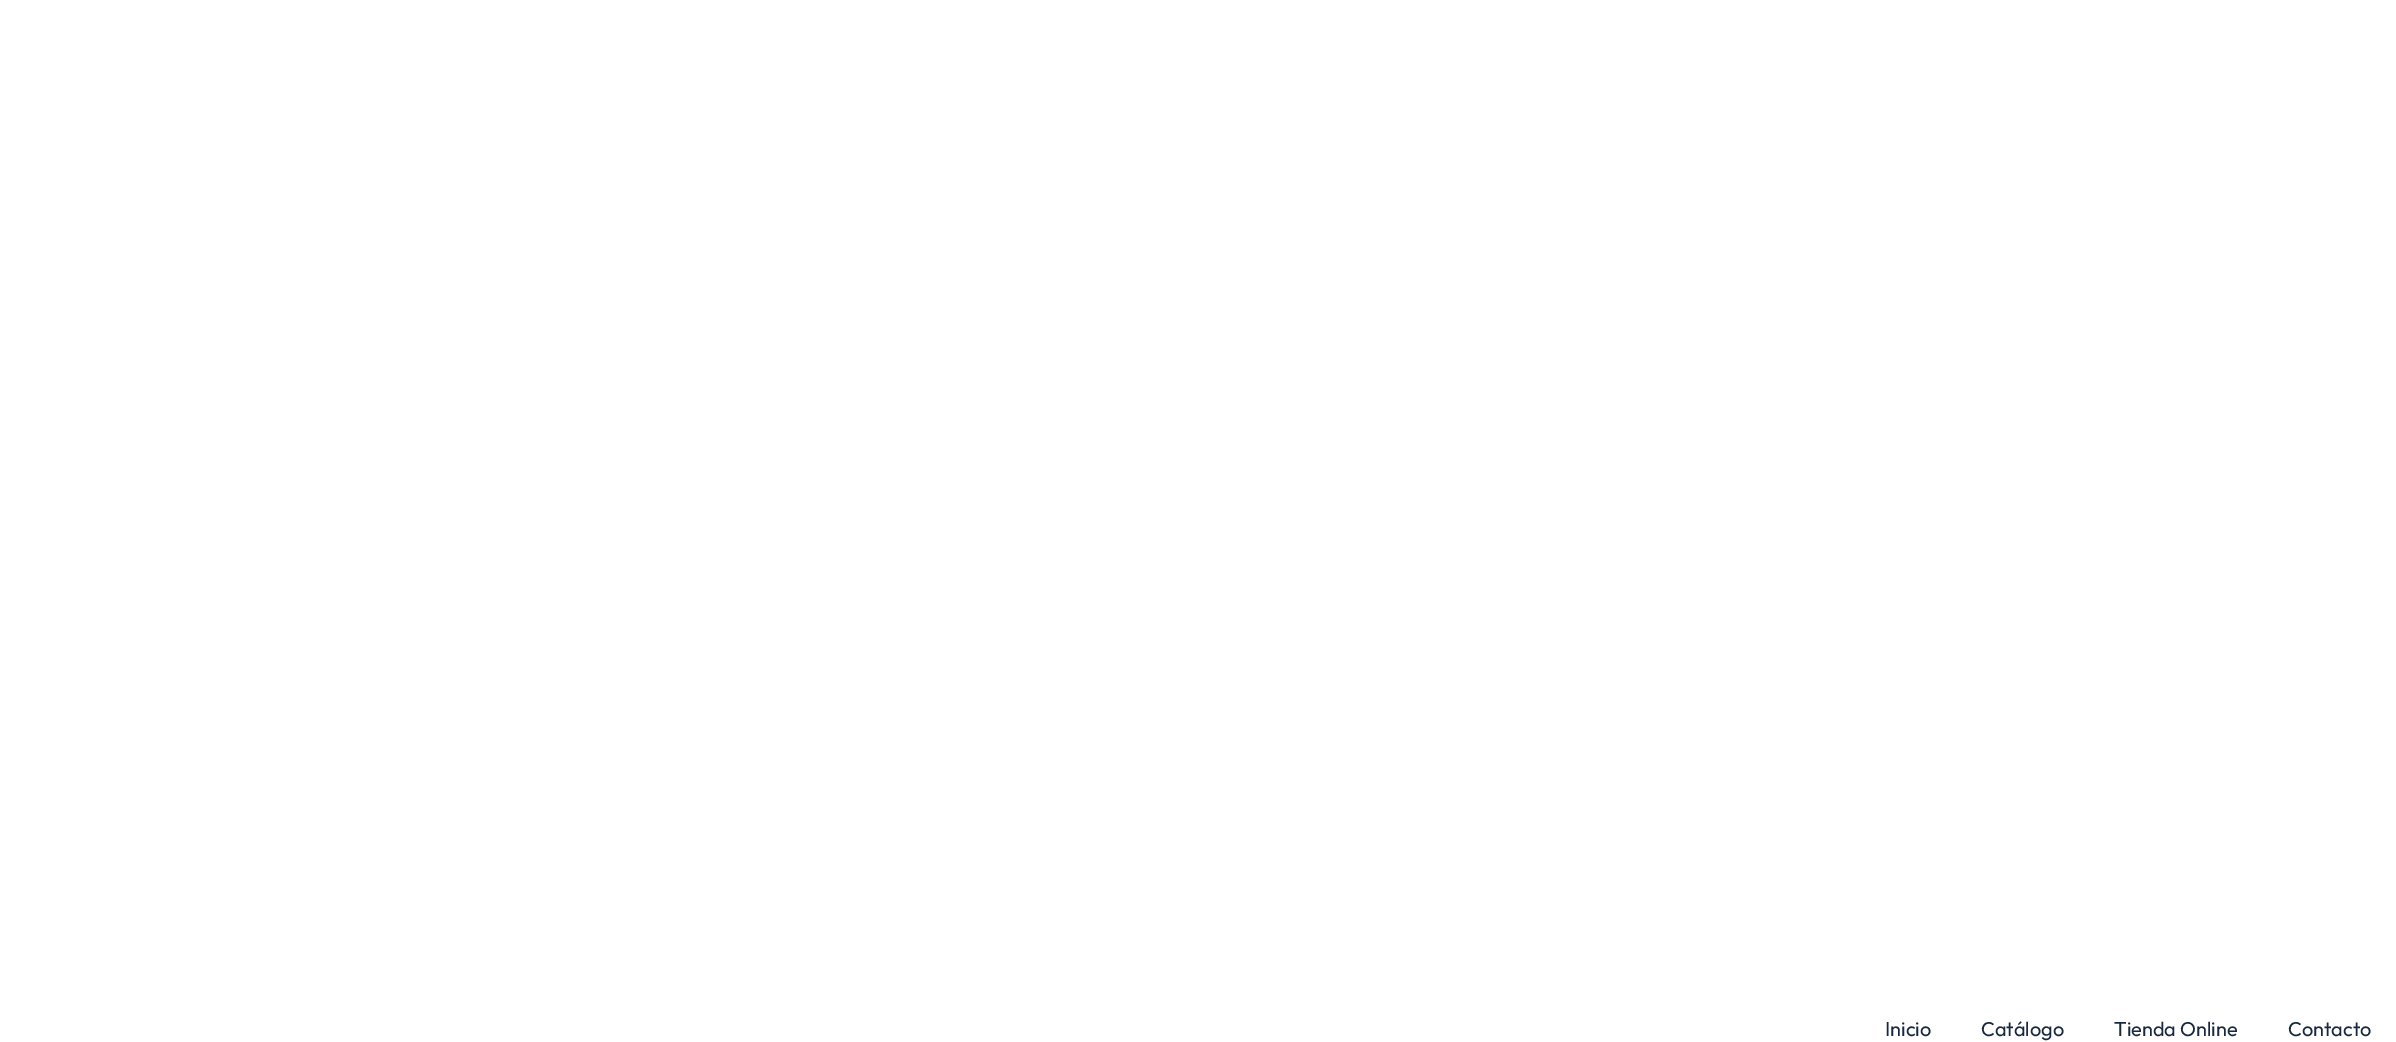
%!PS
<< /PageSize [2396 1042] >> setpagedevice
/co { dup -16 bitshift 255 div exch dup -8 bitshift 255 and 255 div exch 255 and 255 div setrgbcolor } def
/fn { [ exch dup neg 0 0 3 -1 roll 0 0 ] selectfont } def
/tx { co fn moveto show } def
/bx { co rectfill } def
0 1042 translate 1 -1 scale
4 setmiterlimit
0 0 2396 1042 16#FFFFFF bx
(Inicio) 1885 1036 /Outfit-Regular 20 16#17283F tx
(Catálogo) 1981 1036 /Outfit-Regular 20 16#17283F tx
(Tienda Online) 2114 1036 /Outfit-Regular 20 16#17283F tx
(Contacto) 2288 1036 /Outfit-Regular 20 16#17283F tx
showpage
